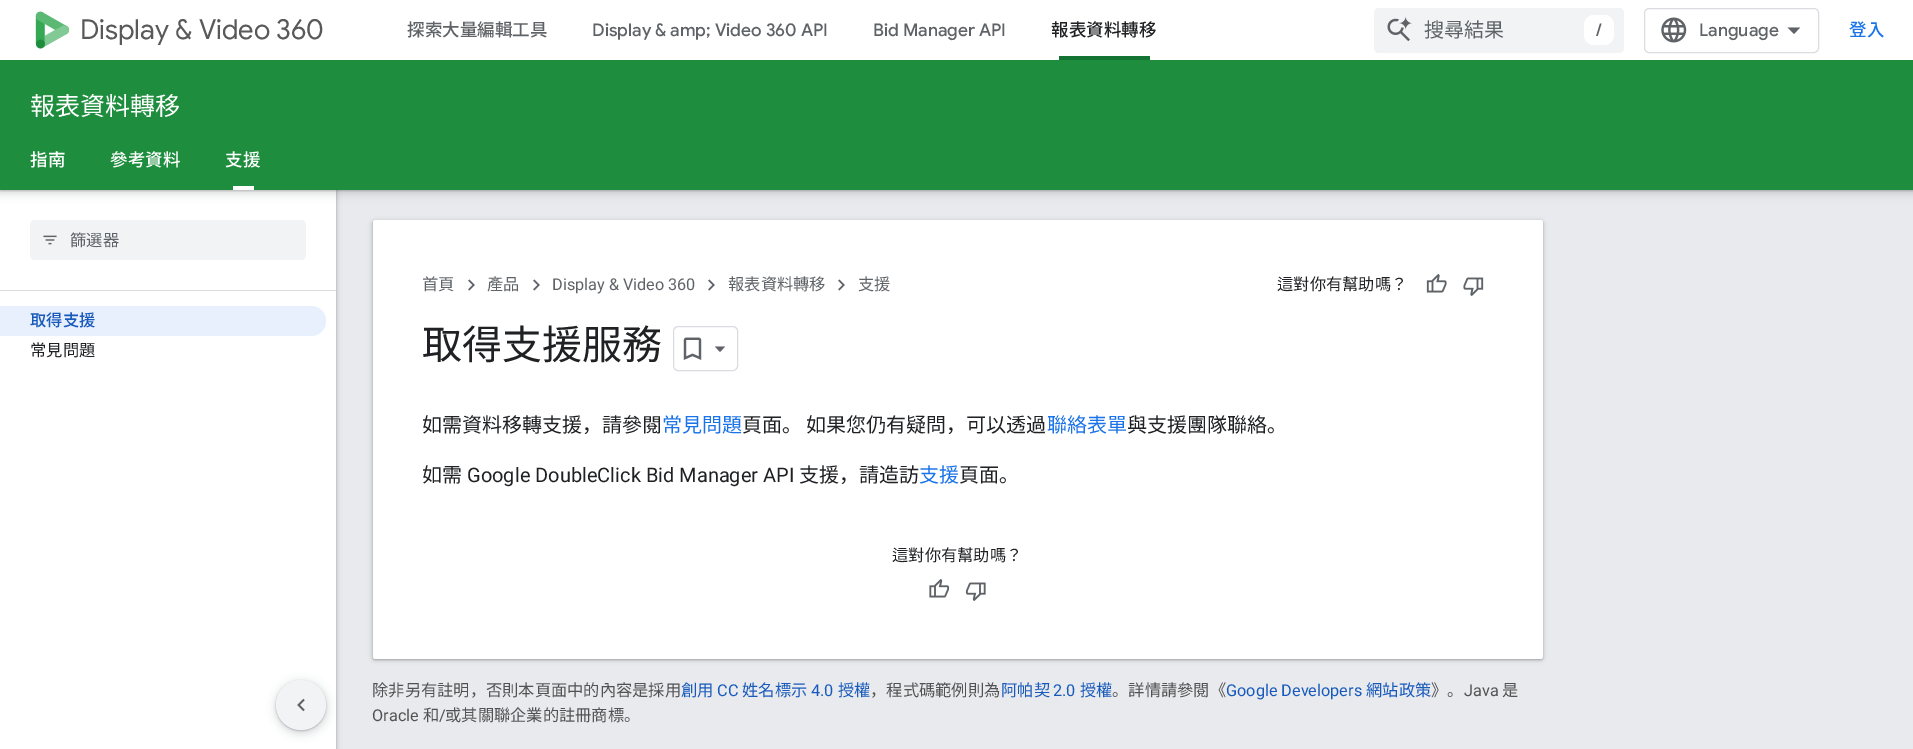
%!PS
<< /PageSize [1913 749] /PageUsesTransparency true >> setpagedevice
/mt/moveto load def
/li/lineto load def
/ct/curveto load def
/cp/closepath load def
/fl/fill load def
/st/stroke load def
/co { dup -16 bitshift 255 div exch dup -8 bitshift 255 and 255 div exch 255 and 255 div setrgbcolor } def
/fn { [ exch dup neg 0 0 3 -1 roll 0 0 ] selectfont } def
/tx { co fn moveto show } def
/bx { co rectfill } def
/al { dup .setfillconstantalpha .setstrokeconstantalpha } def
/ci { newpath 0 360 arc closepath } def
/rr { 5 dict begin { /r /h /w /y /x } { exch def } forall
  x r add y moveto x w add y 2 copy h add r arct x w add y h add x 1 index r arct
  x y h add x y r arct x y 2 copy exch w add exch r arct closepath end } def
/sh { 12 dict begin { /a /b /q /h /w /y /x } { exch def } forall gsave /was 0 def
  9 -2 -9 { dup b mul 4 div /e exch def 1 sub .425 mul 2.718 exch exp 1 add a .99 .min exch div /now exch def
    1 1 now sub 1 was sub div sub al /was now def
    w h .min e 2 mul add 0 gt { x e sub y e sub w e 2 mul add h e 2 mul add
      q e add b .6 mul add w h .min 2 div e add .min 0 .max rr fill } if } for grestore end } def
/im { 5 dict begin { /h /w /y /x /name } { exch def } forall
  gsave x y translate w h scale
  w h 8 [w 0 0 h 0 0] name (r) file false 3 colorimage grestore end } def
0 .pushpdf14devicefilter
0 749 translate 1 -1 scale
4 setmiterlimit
0 0 1913 749 16#E8EAED bx
16#3C4043 co
-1 0 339 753 0 2 .15 sh
0 1 336 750 0 1 .3 sh
0 190 336 559 16#FFFFFF bx
16#3C4043 co
-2 60 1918 135 0 4 .15 sh
0 61 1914 130 0 1 .3 sh
0 0 1913 60 16#FFFFFF bx
(media/1.raw) 35 11 35 38 im
1059 56 91 4 16#137333 bx
16#F1F3F4 co
1374 8 250 45 5 rr fl
(media/2.raw) 1387 16 25 26 im
16#FFFFFF co
1584 15 30 30 10 rr fl
16#DADCE0 co
1644.5 8.5 174 44 4.5 rr st
(media/3.raw) 1661 17 26 26 im
16#5F6368 co
1794 34 mt 1787.5 27.5 li 1800 27.5 li cp fl
0 60 1913 130 16#1E8E3E bx
233 186 21 4 16#FFFFFF bx
0 290 336 1 16#DADCE0 bx
16#F1F3F4 co
30 220 276 40 5 rr fl
(media/4.raw) 43 235 14 10 im
16#E8F0FE co
0 306 mt 311 306 li 319.5 306 326 312.5 326 321 ct 326 329.5 319.5 336 311 336 ct 0 336 li cp fl
16#3C4043 co
274 680 55 55 27.5 4 .15 sh
276 681 50 50 25 1 .3 sh
16#F1F3F4 co
301 705 25 ci fl
(media/5.raw) 297 698 8 14 im
16#3C4043 co
371 220 1173 441 4 2 .15 sh
373 221 1170 439 2.5 1 .3 sh
16#FFFFFF co
373 220 1170 439 2.5 rr fl
(media/6.raw) 468 279 7 12 im
(media/6.raw) 533 279 7 12 im
(media/6.raw) 708 279 7 12 im
(media/6.raw) 838 279 7 12 im
(media/7.raw) 1426 274 21 19 im
(media/8.raw) 1463 277 21 19 im
16#DADCE0 co
673.5 326.5 64 44 4.5 rr st
(media/9.raw) 683 337 19 23 im
16#5F6368 co
715 346.5 mt 725 346.5 li 720 352 li cp fl
(media/10.raw) 929 579 21 19 im
(media/11.raw) 965 582 21 19 im
(Display & Video 360) 80 39 /GoogleSans-Regular 27.5 16#595959 tx
(探索大量編輯工具) 407 36 /NotoSansJP-Medium 17.5 16#5F6368 tx
(Display & amp; Video 360 API) 592 36 /GoogleSans-Medium 17.5 16#5F6368 tx
(Bid Manager API) 873 36 /GoogleSans-Medium 17.5 16#5F6368 tx
(報表資料轉移) 1051 36 /NotoSansJP-Medium 17.5 16#202124 tx
(搜尋結果) 1424 37 /NotoSansJP-Regular 20 16#5F6368 tx
(/) 1596 36 /GoogleSans-Medium 17.5 16#5F6368 tx
(Language) 1699 36 /GoogleSans-Medium 17.5 16#5F6368 tx
(登入) 1849 36 /NotoSansJP-Medium 17.5 16#1A73E8 tx
(報表資料轉移) 30 115 /NotoSansJP-Regular 25 16#FFFFFF tx
(指南) 30 166 /NotoSansJP-Medium 17.5 16#FFFFFF tx
(參考資料) 110 166 /NotoSansJP-Medium 17.5 16#FFFFFF tx
(支援) 225 166 /NotoSansJP-Medium 17.5 16#FFFFFF tx
(篩選器) 70 246 /NotoSansJP-Regular 16.25 16#5F6368 tx
(取得支援) 30 326 /NotoSansJP-Medium 16.25 16#185ABC tx
(常見問題) 30 356 /NotoSansJP-Regular 16.25 16#202124 tx
(首頁) 422 290 /NotoSansJP-Regular 16.25 16#5F6368 tx
(產品) 487 290 /NotoSansJP-Regular 16.25 16#5F6368 tx
(Display & Video 360) 552 290 /Roboto-Regular 16.25 16#5F6368 tx
(報表資料轉移) 728 290 /NotoSansJP-Regular 16.25 16#5F6368 tx
(支援) 858 290 /NotoSansJP-Regular 16.25 16#5F6368 tx
(這對你有幫助嗎？) 1277 290 /NotoSansJP-Regular 16.25 16#202124 tx
(取得支援服務) 422 359 /NotoSansJP-Regular 40 16#202124 tx
(如需資料移轉支援，請參閱) 422 432 /NotoSansJP-Regular 20 16#202124 tx
(常見問題) 662 432 /NotoSansJP-Regular 20 16#1A73E8 tx
(頁面。 如果您仍有疑問，可以透過) 742 432 /NotoSansJP-Regular 20 16#202124 tx
(聯絡表單) 1047 432 /NotoSansJP-Regular 20 16#1A73E8 tx
(與支援團隊聯絡。) 1127 432 /NotoSansJP-Regular 20 16#202124 tx
(如需) 422 482 /NotoSansJP-Regular 20 16#202124 tx
(Google DoubleClick Bid Manager API) 467 482 /Roboto-Regular 20 16#202124 tx
(支援，請造訪) 799 482 /NotoSansJP-Regular 20 16#202124 tx
(支援) 919 482 /NotoSansJP-Regular 20 16#1A73E8 tx
(頁面。) 959 482 /NotoSansJP-Regular 20 16#202124 tx
(這對你有幫助嗎？) 892 561 /NotoSansJP-Regular 16.25 16#202124 tx
(除非另有註明，否則本頁面中的內容是採用) 372 696 /NotoSansJP-Regular 16.25 16#515253 tx
(創用) 681 696 /NotoSansJP-Regular 16.25 16#185ABC tx
(CC) 717 696 /Roboto-Regular 16.25 16#185ABC tx
(姓名標示) 742 696 /NotoSansJP-Regular 16.25 16#185ABC tx
(4.0) 811 696 /Roboto-Regular 16.25 16#185ABC tx
(授權) 838 696 /NotoSansJP-Regular 16.25 16#185ABC tx
(，程式碼範例則為) 870 696 /NotoSansJP-Regular 16.25 16#515253 tx
(阿帕契) 1001 696 /NotoSansJP-Regular 16.25 16#185ABC tx
(2.0) 1053 696 /Roboto-Regular 16.25 16#185ABC tx
(授權) 1080 696 /NotoSansJP-Regular 16.25 16#185ABC tx
(。詳情請參閱《) 1112 696 /NotoSansJP-Regular 16.25 16#515253 tx
(Google Developers) 1226 696 /Roboto-Regular 16.25 16#185ABC tx
(網站政策) 1366 696 /NotoSansJP-Regular 16.25 16#185ABC tx
(》。) 1431 696 /NotoSansJP-Regular 16.25 16#515253 tx
(Java) 1464 696 /Roboto-Regular 16.25 16#515253 tx
(是) 1502 696 /NotoSansJP-Regular 16.25 16#515253 tx
(Oracle) 372 721 /Roboto-Regular 16.25 16#515253 tx
(和) 423 721 /NotoSansJP-Regular 16.25 16#515253 tx
(/) 439 721 /Roboto-Regular 16.25 16#515253 tx
(或其關聯企業的註冊商標。) 445 721 /NotoSansJP-Regular 16.25 16#515253 tx
.poppdf14devicefilter showpage
